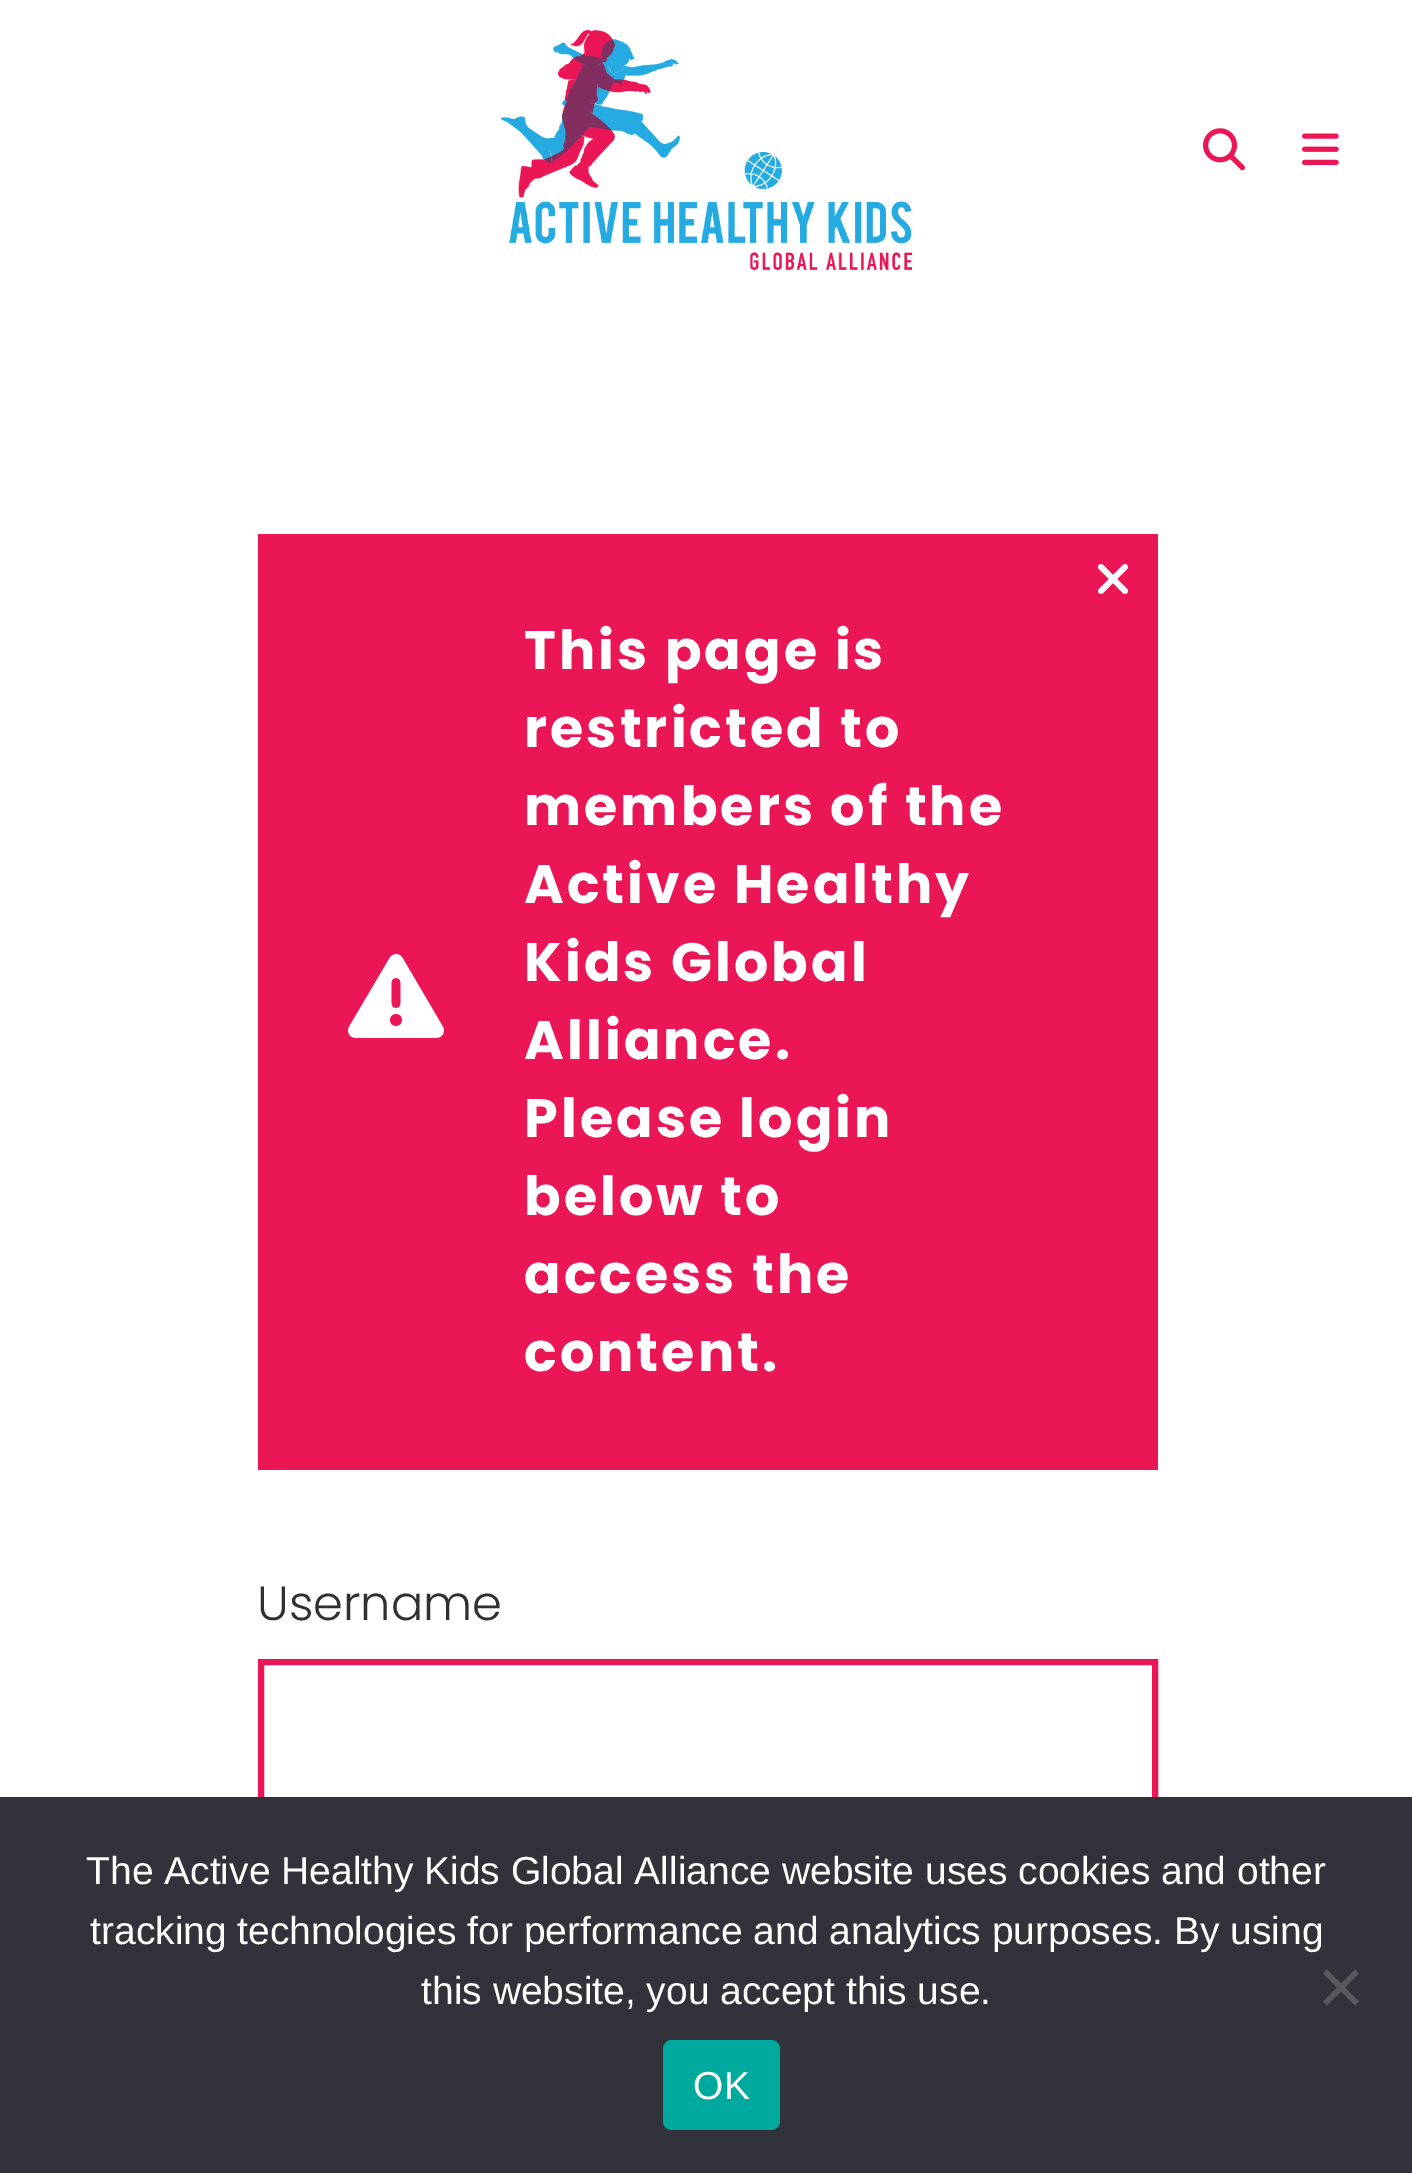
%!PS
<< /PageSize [1412 2173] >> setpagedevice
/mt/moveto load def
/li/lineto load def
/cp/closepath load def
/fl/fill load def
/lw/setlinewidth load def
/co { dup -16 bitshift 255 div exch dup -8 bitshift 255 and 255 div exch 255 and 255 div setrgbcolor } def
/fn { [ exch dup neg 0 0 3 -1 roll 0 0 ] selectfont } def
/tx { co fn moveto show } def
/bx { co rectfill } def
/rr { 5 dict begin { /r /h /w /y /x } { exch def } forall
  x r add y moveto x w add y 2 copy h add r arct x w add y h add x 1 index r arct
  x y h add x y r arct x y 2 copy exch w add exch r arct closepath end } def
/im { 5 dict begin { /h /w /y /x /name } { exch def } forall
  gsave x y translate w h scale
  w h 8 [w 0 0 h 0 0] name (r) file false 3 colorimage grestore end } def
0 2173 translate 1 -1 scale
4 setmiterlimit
0 0 1412 2173 16#FFFFFF bx
(media/1.raw) 501 30 411 240 im
(media/2.raw) 1203 128 42 43 im
(media/3.raw) 1302 133 37 32 im
258 534 900 936 16#EA1656 bx
(media/4.raw) 1098 564 30 30 im
(media/5.raw) 348 954 96 84 im
6 lw
261 1662 894 147 rectstroke
0 1797 1412 376 16#32323A bx
16#59595D co
1355 1969.5 mt 1359 1973.5 li 1327 2005.5 li 1323 2001.5 li cp fl
1323 1973.5 mt 1327 1969.5 li 1359 2001.5 li 1355 2005.5 li cp fl
16#00A99D co
663 2040 117 90 9 rr fl
/Poppins-Bold 54 fn
16#FFFFFF co
524 669 mt 3 0 (This page is) ashow
524 747 mt 3 0 (restricted to) ashow
524 825 mt 3 0 (members of the) ashow
524 903 mt 3 0 (Active Healthy) ashow
524 981 mt 3 0 (Kids Global) ashow
524 1059 mt 3 0 (Alliance.) ashow
524 1137 mt 3 0 (Please login) ashow
524 1215 mt 3 0 (below to) ashow
524 1293 mt 3 0 (access the) ashow
524 1371 mt 3 0 (content.) ashow
(Username) 257 1620 /Poppins-Light 48 16#303030 tx
(The Active Healthy Kids Global Alliance website uses cookies and other) 86 1884 /LiberationSans-Regular 39 16#FFFFFF tx
(tracking technologies for performance and analytics purposes. By using) 90 1944 /LiberationSans-Regular 39 16#FFFFFF tx
(this website, you accept this use.) 421 2004 /LiberationSans-Regular 39 16#FFFFFF tx
693 2099 mt 1 0 (OK) ashow
showpage
